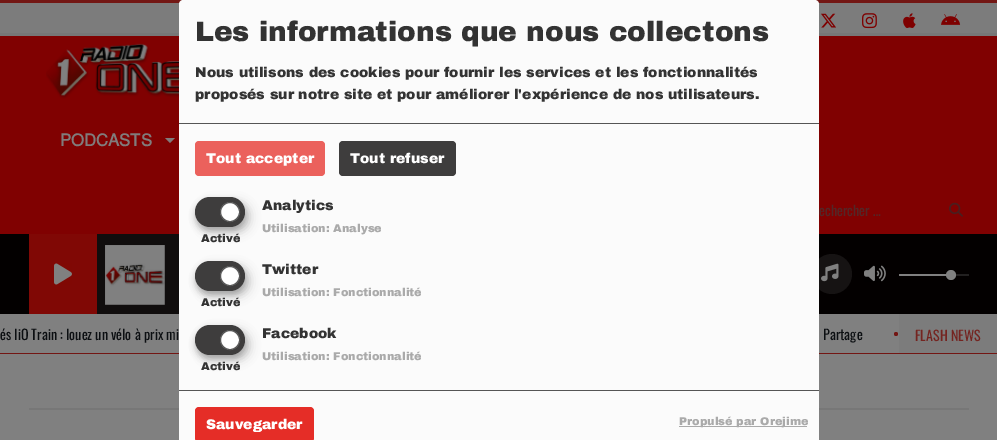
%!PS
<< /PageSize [997 440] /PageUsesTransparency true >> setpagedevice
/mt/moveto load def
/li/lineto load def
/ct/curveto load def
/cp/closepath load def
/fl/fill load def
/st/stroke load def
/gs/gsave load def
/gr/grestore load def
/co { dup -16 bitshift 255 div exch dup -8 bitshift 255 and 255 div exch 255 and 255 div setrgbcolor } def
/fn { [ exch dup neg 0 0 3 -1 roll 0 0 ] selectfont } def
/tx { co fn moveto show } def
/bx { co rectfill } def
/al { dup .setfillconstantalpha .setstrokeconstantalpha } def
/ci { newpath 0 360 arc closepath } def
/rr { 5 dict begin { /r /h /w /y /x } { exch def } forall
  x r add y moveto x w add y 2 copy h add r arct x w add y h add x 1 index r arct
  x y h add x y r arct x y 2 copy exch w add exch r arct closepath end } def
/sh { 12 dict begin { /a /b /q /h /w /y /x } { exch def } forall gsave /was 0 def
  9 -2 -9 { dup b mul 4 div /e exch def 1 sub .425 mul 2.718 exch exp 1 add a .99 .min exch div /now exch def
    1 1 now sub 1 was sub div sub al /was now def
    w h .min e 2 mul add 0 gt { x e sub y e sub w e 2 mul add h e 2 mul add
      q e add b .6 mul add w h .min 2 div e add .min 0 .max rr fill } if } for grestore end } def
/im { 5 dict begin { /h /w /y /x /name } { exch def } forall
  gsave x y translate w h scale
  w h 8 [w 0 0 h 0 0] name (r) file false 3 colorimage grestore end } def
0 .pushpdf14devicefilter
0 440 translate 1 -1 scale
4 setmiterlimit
0 0 997 440 16#808080 bx
0 3 997 30 16#7C7C7C bx
0 0 997 3 16#731714 bx
0 33 997 3 16#777777 bx
(media/1.raw) 821 13 15 15 im
0 36 997 198 16#800101 bx
(media/5.raw) 46 43 133 56 im
16#807C7C co
165 138 mt 175 138 li 170 143 li cp fl
0 234 997 80 16#030000 bx
0.1 al
97 234 82 80 16#808080 bx
1 al
16#161313 co
832 274 20 ci fl
(media/9.raw) 821 263 18 19 im
0 353 997 1 16#731613 bx
29 408 940 2 16#777777 bx
gs
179 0 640 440 rectclip
16#000000 co
184 5 640 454 4 5 .19 sh
gr
16#FBFBFB co
183 0 mt 815 0 li 817 0 819 2 819 4 ct 819 440 li 179 440 li 179 4 li 179 2 181 0 183 0 ct cp fl
179 123 640 1 16#555555 bx
16#EB615C co
195 141 130 35 4 rr fl
16#3E3D3D co
339 141 117 35 4 rr fl
16#000000 co
200 202 50 30 15 5 .19 sh
195 201 50 30 15 3 .2 sh
16#3E3D3D co
195 197 50 30 15 rr fl
16#FFFFFF co
230 212 9.5 ci gs fl gr
16#555555 co
st
16#000000 co
200 266 50 30 15 5 .19 sh
195 265 50 30 15 3 .2 sh
16#3E3D3D co
195 261 50 30 15 rr fl
16#FFFFFF co
230 276 9.5 ci gs fl gr
16#555555 co
st
16#000000 co
200 330 50 30 15 5 .19 sh
195 329 50 30 15 3 .2 sh
16#3E3D3D co
195 325 50 30 15 rr fl
16#FFFFFF co
230 340 9.5 ci gs fl gr
16#555555 co
st
179 390 640 1 16#555555 bx
16#E52D27 co
195 407 119 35 4 rr fl
679 426 128 1 16#AAAAAA bx
(media/2.raw) 862 13 15 16 im
(media/3.raw) 903 13 13 15 im
(media/4.raw) 941 14 20 11 im
(media/6.raw) 949 202 14 15 im
29 234 68 80 16#800805 bx
(media/7.raw) 54 263 18 22 im
(media/8.raw) 105 245 60 60 im
(media/10.raw) 864 265 22 17 im
899 274 70 2 16#222020 bx
16#808080 co
899 274 52 2 1 rr fl
951 275 5 ci fl
16#731613 co
896 334 2 ci fl
899 314 98 39 16#7C7C7C bx
(Les informations que nous collectons) 195 41 /ArchivoBlack-Black 28 16#333333 tx
(Nous utilisons des cookies pour fournir les services et les fonctionnalités) 195 77 /ArchivoBlack-Black 14 16#333333 tx
(proposés sur notre site et pour améliorer l'expérience de nos utilisateurs.) 195 99 /ArchivoBlack-Black 14 16#333333 tx
(Tout accepter) 206 163 /ArchivoBlack-Black 14 16#FFFFFF tx
(Tout refuser) 350 163 /ArchivoBlack-Black 14 16#FFFFFF tx
(Analytics) 262 210 /ArchivoBlack-Black 14 16#333333 tx
(Activé) 201 242 /ArchivoBlack-Black 11.25 16#333333 tx
(Utilisation: Analyse) 262 232 /ArchivoBlack-Black 11.25 16#AAAAAA tx
(Twitter) 262 274 /ArchivoBlack-Black 14 16#333333 tx
(Activé) 201 306 /ArchivoBlack-Black 11.25 16#333333 tx
(Utilisation: Fonctionnalité) 262 296 /ArchivoBlack-Black 11.25 16#AAAAAA tx
(Facebook) 262 338 /ArchivoBlack-Black 14 16#333333 tx
(Activé) 201 370 /ArchivoBlack-Black 11.25 16#333333 tx
(Utilisation: Fonctionnalité) 262 360 /ArchivoBlack-Black 11.25 16#AAAAAA tx
(Sauvegarder) 206 429 /ArchivoBlack-Black 14 16#FFFFFF tx
(Propulsé par Orejime) 679 425 /ArchivoBlack-Black 11.25 16#AAAAAA tx
(PODCASTS) 60 146 /Almarai-Bold 17 16#807C7C tx
(echercher …) 819 216 /Oswald-Regular 14 16#532727 tx
(és liO Train : louez un vélo à prix mi) 0 340 /Oswald-Regular 14 16#0C0F12 tx
(Partage) 823 340 /Oswald-Regular 14 16#0C0F12 tx
(FLASH NEWS) 915 341 /Oswald-Regular 14 16#742420 tx
.poppdf14devicefilter showpage
